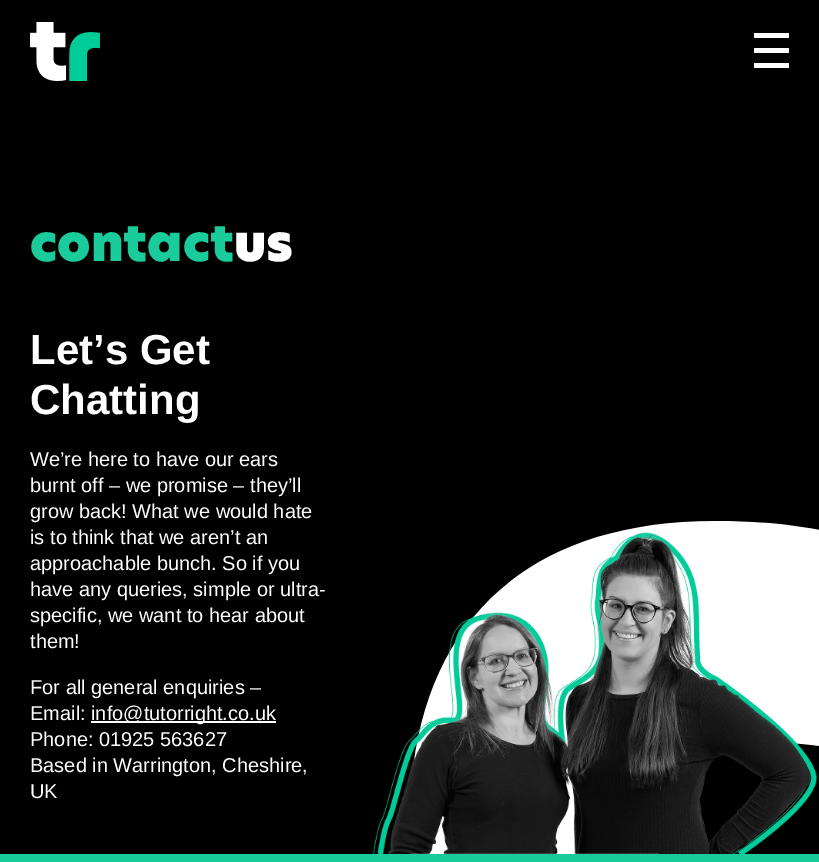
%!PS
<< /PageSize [819 862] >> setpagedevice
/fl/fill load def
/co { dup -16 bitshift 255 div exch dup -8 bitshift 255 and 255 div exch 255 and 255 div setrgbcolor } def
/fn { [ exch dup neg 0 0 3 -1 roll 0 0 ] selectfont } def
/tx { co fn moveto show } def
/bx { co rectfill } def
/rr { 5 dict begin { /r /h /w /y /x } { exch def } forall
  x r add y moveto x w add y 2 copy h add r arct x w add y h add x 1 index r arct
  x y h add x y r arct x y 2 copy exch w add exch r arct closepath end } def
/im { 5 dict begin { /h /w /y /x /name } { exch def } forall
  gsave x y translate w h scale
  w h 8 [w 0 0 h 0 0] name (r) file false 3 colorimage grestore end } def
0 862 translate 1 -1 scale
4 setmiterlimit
0 0 819 862 16#1ACC9C bx
0 0 819 854 16#000000 bx
(media/1.raw) 30 22 70 59 im
16#FFFFFF co
754 33 35 5 1 rr fl
754 48 35 5 1 rr fl
754 63 35 5 1 rr fl
91 721 185 2 16#FFFFFF bx
(media/4.raw) 410 521 409 333 im
(media/2.raw) 373 532 444 322 im
(media/3.raw) 386 532 425 322 im
(contact) 30 261 /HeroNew-Black 50 16#1ACC9C tx
(us) 234 261 /HeroNew-Black 50 16#FFFFFF tx
(Let’s Get) 30 364 /LiberationSans-Bold 42 16#FFFFFF tx
(Chatting) 30 414 /LiberationSans-Bold 42 16#FFFFFF tx
(We’re here to have our ears) 30 466 /LiberationSans-Regular 20 16#FFFFFF tx
(burnt off – we promise – they’ll) 30 492 /LiberationSans-Regular 20 16#FFFFFF tx
(grow back! What we would hate) 30 518 /LiberationSans-Regular 20 16#FFFFFF tx
(is to think that we aren’t an) 30 544 /LiberationSans-Regular 20 16#FFFFFF tx
(approachable bunch. So if you) 30 570 /LiberationSans-Regular 20 16#FFFFFF tx
(have any queries, simple or ultra-) 30 596 /LiberationSans-Regular 20 16#FFFFFF tx
(specific, we want to hear about) 30 622 /LiberationSans-Regular 20 16#FFFFFF tx
(them!) 30 648 /LiberationSans-Regular 20 16#FFFFFF tx
(For all general enquiries –) 30 694 /LiberationSans-Regular 20 16#FFFFFF tx
(Email:) 30 720 /LiberationSans-Regular 20 16#FFFFFF tx
(info@tutorright.co.uk) 91 720 /LiberationSans-Regular 20 16#FFFFFF tx
(Phone: 01925 563627) 30 746 /LiberationSans-Regular 20 16#FFFFFF tx
(Based in Warrington, Cheshire,) 30 772 /LiberationSans-Regular 20 16#FFFFFF tx
(UK) 30 798 /LiberationSans-Regular 20 16#FFFFFF tx
showpage
